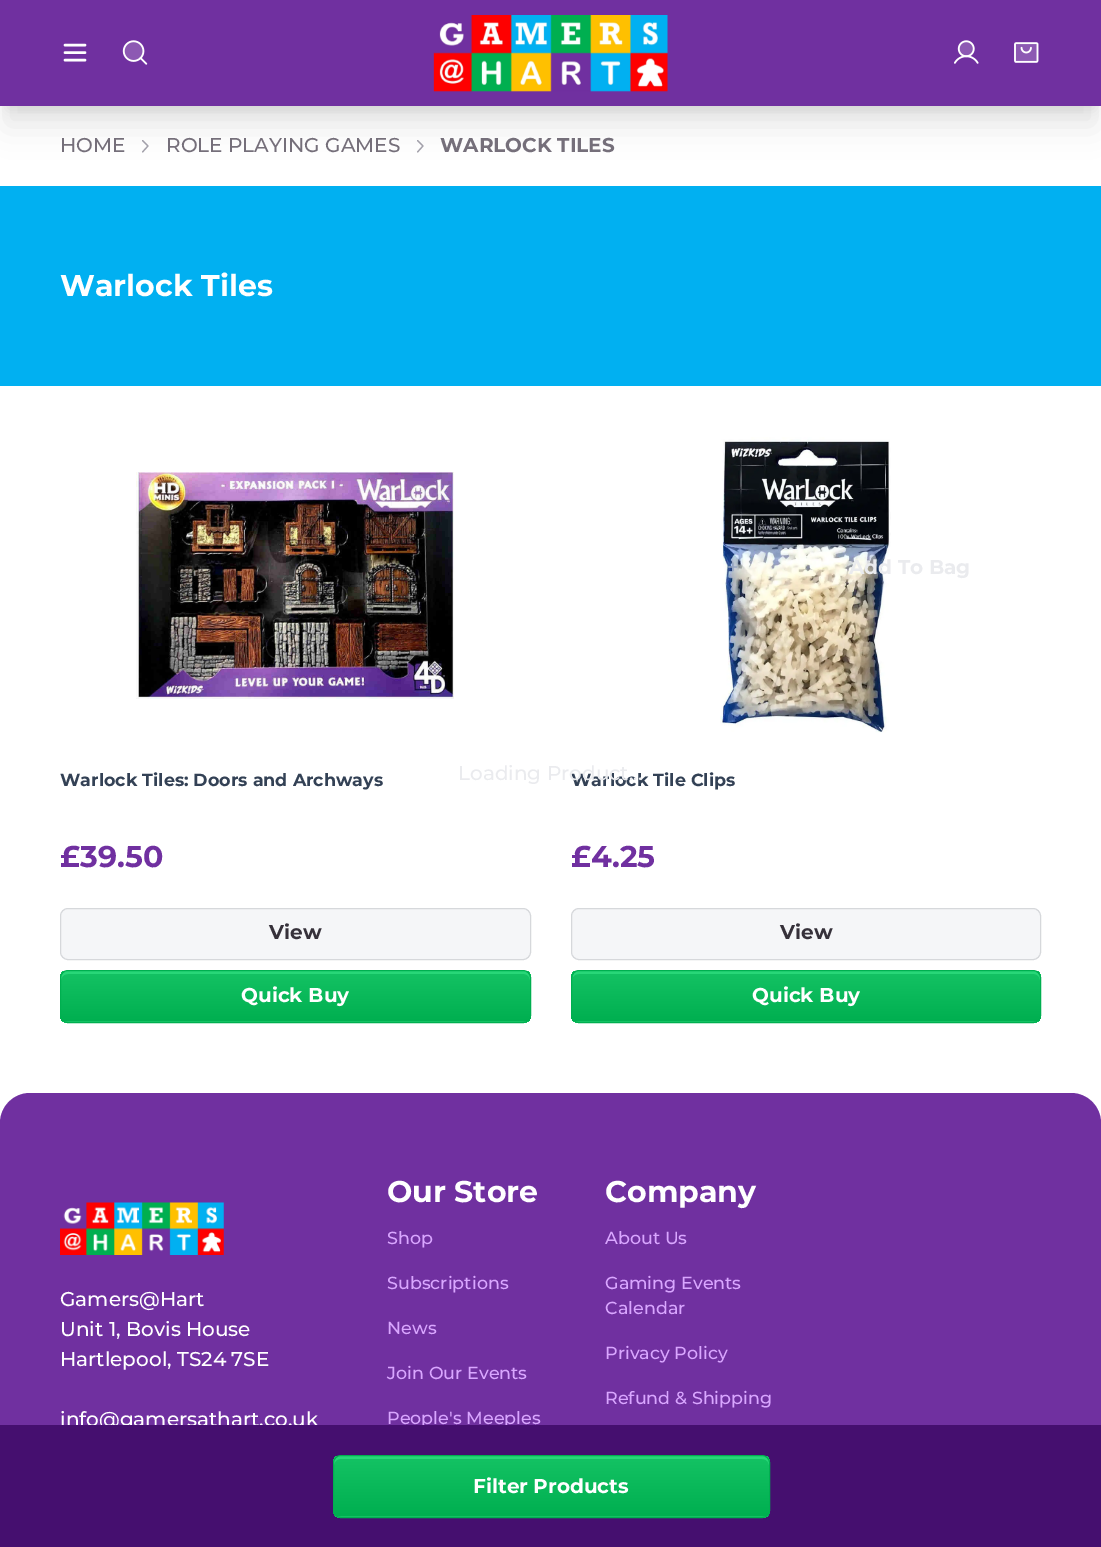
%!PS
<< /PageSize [1101 1547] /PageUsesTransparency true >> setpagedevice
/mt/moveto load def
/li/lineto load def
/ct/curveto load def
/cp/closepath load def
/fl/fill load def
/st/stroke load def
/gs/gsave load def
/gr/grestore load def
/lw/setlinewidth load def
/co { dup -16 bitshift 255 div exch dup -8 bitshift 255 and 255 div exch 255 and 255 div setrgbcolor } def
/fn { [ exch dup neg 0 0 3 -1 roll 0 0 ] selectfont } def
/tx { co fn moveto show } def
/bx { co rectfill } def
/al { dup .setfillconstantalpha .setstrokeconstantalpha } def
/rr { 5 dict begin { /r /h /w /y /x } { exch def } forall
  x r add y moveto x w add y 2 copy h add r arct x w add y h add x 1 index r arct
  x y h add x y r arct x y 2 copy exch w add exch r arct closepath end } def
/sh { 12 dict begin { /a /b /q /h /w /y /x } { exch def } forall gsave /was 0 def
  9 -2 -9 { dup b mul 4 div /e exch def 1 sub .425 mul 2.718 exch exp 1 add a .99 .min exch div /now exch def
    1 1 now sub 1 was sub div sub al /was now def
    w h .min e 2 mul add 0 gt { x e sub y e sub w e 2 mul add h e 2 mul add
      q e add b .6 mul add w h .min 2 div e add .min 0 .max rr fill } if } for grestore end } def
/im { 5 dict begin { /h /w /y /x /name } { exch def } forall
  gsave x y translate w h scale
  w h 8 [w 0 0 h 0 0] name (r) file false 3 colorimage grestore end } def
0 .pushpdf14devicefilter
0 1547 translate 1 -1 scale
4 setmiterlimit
0 0 1101 1547 16#FFFFFF bx
16#000000 co
8 18 1086 91 0 6 .1 sh
16#A5A3AD co
1.2 lw
1 setlinecap
1 setlinejoin
142.5 152 mt 148 146 li 142.5 140.5 li st
417.5 152 mt 423 146 li 417.5 140.5 li st
16#000000 co
6 31 1089 94 0 15.5 .1 sh
0 0 1101 106 16#7030A0 bx
16#FFFFFF co
2.5 lw
65 45 mt 85 45 li 65 52.5 mt 85 52.5 li 65 60 mt 85 60 li st
(media/1.raw) 122 40 26 25 im
(media/2.raw) 433 15 235 77 im
(media/3.raw) 954 40 25 24 im
(media/4.raw) 1014 42 25 21 im
0 186 1101 200 16#01B0F1 bx
(media/5.raw) 136 472 318 227 im
16#F5F6F8 co
60.5 908.5 470 51 7.5 rr gs fl gr
16#D6D8DB co
1 lw
0 setlinecap
0 setlinejoin
st
gs
60 970 471 53 8 rr clip newpath
gs 60 971 mt 531 971 li 531 1021 li 60 1021 li cp clip newpath
<< /ShadingType 2 /ColorSpace /DeviceRGB /Coords [296 971 296 1021] /Extend [true true] /Function << /FunctionType 2 /Domain [0 1] /C0 [.078 .765 .392] /C1 [0 .686 .314] /N 1 >> >> shfill gr
gs 60 1021 mt 531 1021 li 531 1023 li 60 1023 li cp clip newpath
<< /ShadingType 2 /ColorSpace /DeviceRGB /Coords [296 1021 296 1071] /Extend [true true] /Function << /FunctionType 2 /Domain [0 1] /C0 [.078 .765 .392] /C1 [0 .686 .314] /N 1 >> >> shfill gr
gr
16#28D778 co
68 974 mt 524 974 li 527 974 530 977 530 980 ct 530 976 529 971 524 971 ct 67 971 li 62 971 61 976 61 980 ct 61 977 64 974 68 974 ct cp fl
16#00AF50 co
60.5 970.5 470 52 7.5 rr st
(media/6.raw) 720 437 171 296 im
16#F5F6F8 co
571.5 908.5 469 51 7.5 rr gs fl gr
16#D6D8DB co
st
gs
571 970 470 53 8 rr clip newpath
gs 571 971 mt 1041 971 li 1041 1021 li 571 1021 li cp clip newpath
<< /ShadingType 2 /ColorSpace /DeviceRGB /Coords [806 971 806 1021] /Extend [true true] /Function << /FunctionType 2 /Domain [0 1] /C0 [.078 .765 .392] /C1 [0 .686 .314] /N 1 >> >> shfill gr
gs 571 1021 mt 1041 1021 li 1041 1023 li 571 1023 li cp clip newpath
<< /ShadingType 2 /ColorSpace /DeviceRGB /Coords [806 1021 806 1071] /Extend [true true] /Function << /FunctionType 2 /Domain [0 1] /C0 [.078 .765 .392] /C1 [0 .686 .314] /N 1 >> >> shfill gr
gr
16#28D778 co
579 974 mt 1034 974 li 1037 974 1040 977 1040 980 ct 1040 977 li 1040 974 1037 971 1034 971 ct 579 971 li 576 971 573 974 573 977 ct 574 975 576 974 579 974 ct cp fl
16#00AF50 co
571.5 970.5 469 52 7.5 rr st
16#7030A0 co
30 1093 mt 1071 1093 li 1087.5 1093 1101 1106.5 1101 1123 ct 1101 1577 li 0 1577 li 0 1123 li 0 1106.5 13.5 1093 30 1093 ct cp fl
(media/7.raw) 60 1202 164 53 im
(HOME) 60 152 /Montserrat-Medium 20 16#756F7A tx
(ROLE PLAYING GAMES) 166 152 /Montserrat-Medium 20 16#756F7A tx
(WARLOCK TILES) 440 152 /Montserrat-Bold 20 16#756F7A tx
(Warlock Tiles) 60 296 /Montserrat-Bold 30 16#FFFFFF tx
(Warlock Tiles: Doors and Archways) 60 786 /Montserrat-Bold 17.5 16#334155 tx
(£39.50) 60 867 /Montserrat-Bold 30 16#7030A0 tx
(View) 269 939 /Montserrat-Bold 20 16#36313A tx
(Quick Buy) 241 1002 /Montserrat-Bold 20 16#FFFFFF tx
(Warlock Tile Clips) 571 786 /Montserrat-Bold 17.5 16#334155 tx
(£4.25) 571 867 /Montserrat-Bold 30 16#7030A0 tx
(View) 780 939 /Montserrat-Bold 20 16#36313A tx
(Quick Buy) 752 1002 /Montserrat-Bold 20 16#FFFFFF tx
(+) 727 574 /Montserrat-Medium 20 16#97A6C2 tx
(Add To Bag) 849 574 /Montserrat-Bold 20 16#EAEBEE tx
(Loading Product...) 458 780 /Montserrat-Medium 20 16#EAEBEE tx
(Gamers@Hart) 60 1306 /Montserrat-Medium 20 16#FFFFFF tx
(Unit 1, Bovis House) 60 1336 /Montserrat-Medium 20 16#FFFFFF tx
(Hartlepool, TS24 7SE) 60 1366 /Montserrat-Medium 20 16#FFFFFF tx
(info@gamersathart.co.uk) 60 1426 /Montserrat-Medium 20 16#FFFFFF tx
(Our Store) 387 1202 /Montserrat-Bold 30 16#FFFFFF tx
(Shop) 387 1244 /Montserrat-Medium 17.5 16#D9A6FF tx
(Subscriptions) 387 1289 /Montserrat-Medium 17.5 16#D9A6FF tx
(News) 387 1334 /Montserrat-Medium 17.5 16#D9A6FF tx
(Join Our Events) 387 1379 /Montserrat-Medium 17.5 16#D9A6FF tx
(People's Meeples) 387 1424 /Montserrat-Medium 17.5 16#D9A6FF tx
0 1425 1101 122 16#450F6F bx
gs
333 1455 437 63 8 rr clip newpath
gs 333 1456 mt 770 1456 li 770 1516 li 333 1516 li cp clip newpath
<< /ShadingType 2 /ColorSpace /DeviceRGB /Coords [551 1456 551 1516] /Extend [true true] /Function << /FunctionType 2 /Domain [0 1] /C0 [.078 .765 .392] /C1 [0 .686 .314] /N 1 >> >> shfill gr
gr
16#28D778 co
340 1459 mt 762 1459 li 766 1459 769 1462 769 1465 ct 769 1462 li 769 1459 766 1456 763 1456 ct 340 1456 li 337 1456 334 1459 334 1462 ct 334 1465 li 334 1462 337 1459 340 1459 ct cp fl
gs
333 1455 437 63 8 rr clip newpath
gs 333 1516 mt 770 1516 li 770 1518 li 333 1518 li cp clip newpath
<< /ShadingType 2 /ColorSpace /DeviceRGB /Coords [551 1516 551 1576] /Extend [true true] /Function << /FunctionType 2 /Domain [0 1] /C0 [.078 .765 .392] /C1 [0 .686 .314] /N 1 >> >> shfill gr
gr
16#00AF50 co
333.5 1455.5 436 62 7.5 rr st
(Filter Products) 473 1493 /Montserrat-Bold 20 16#FFFFFF tx
(Company) 605 1202 /Montserrat-Bold 30 16#FFFFFF tx
(About Us) 605 1244 /Montserrat-Medium 17.5 16#D9A6FF tx
(Gaming Events) 605 1289 /Montserrat-Medium 17.5 16#D9A6FF tx
(Calendar) 605 1314 /Montserrat-Medium 17.5 16#D9A6FF tx
(Privacy Policy) 605 1359 /Montserrat-Medium 17.5 16#D9A6FF tx
(Refund & Shipping) 605 1404 /Montserrat-Medium 17.5 16#D9A6FF tx
.poppdf14devicefilter showpage
